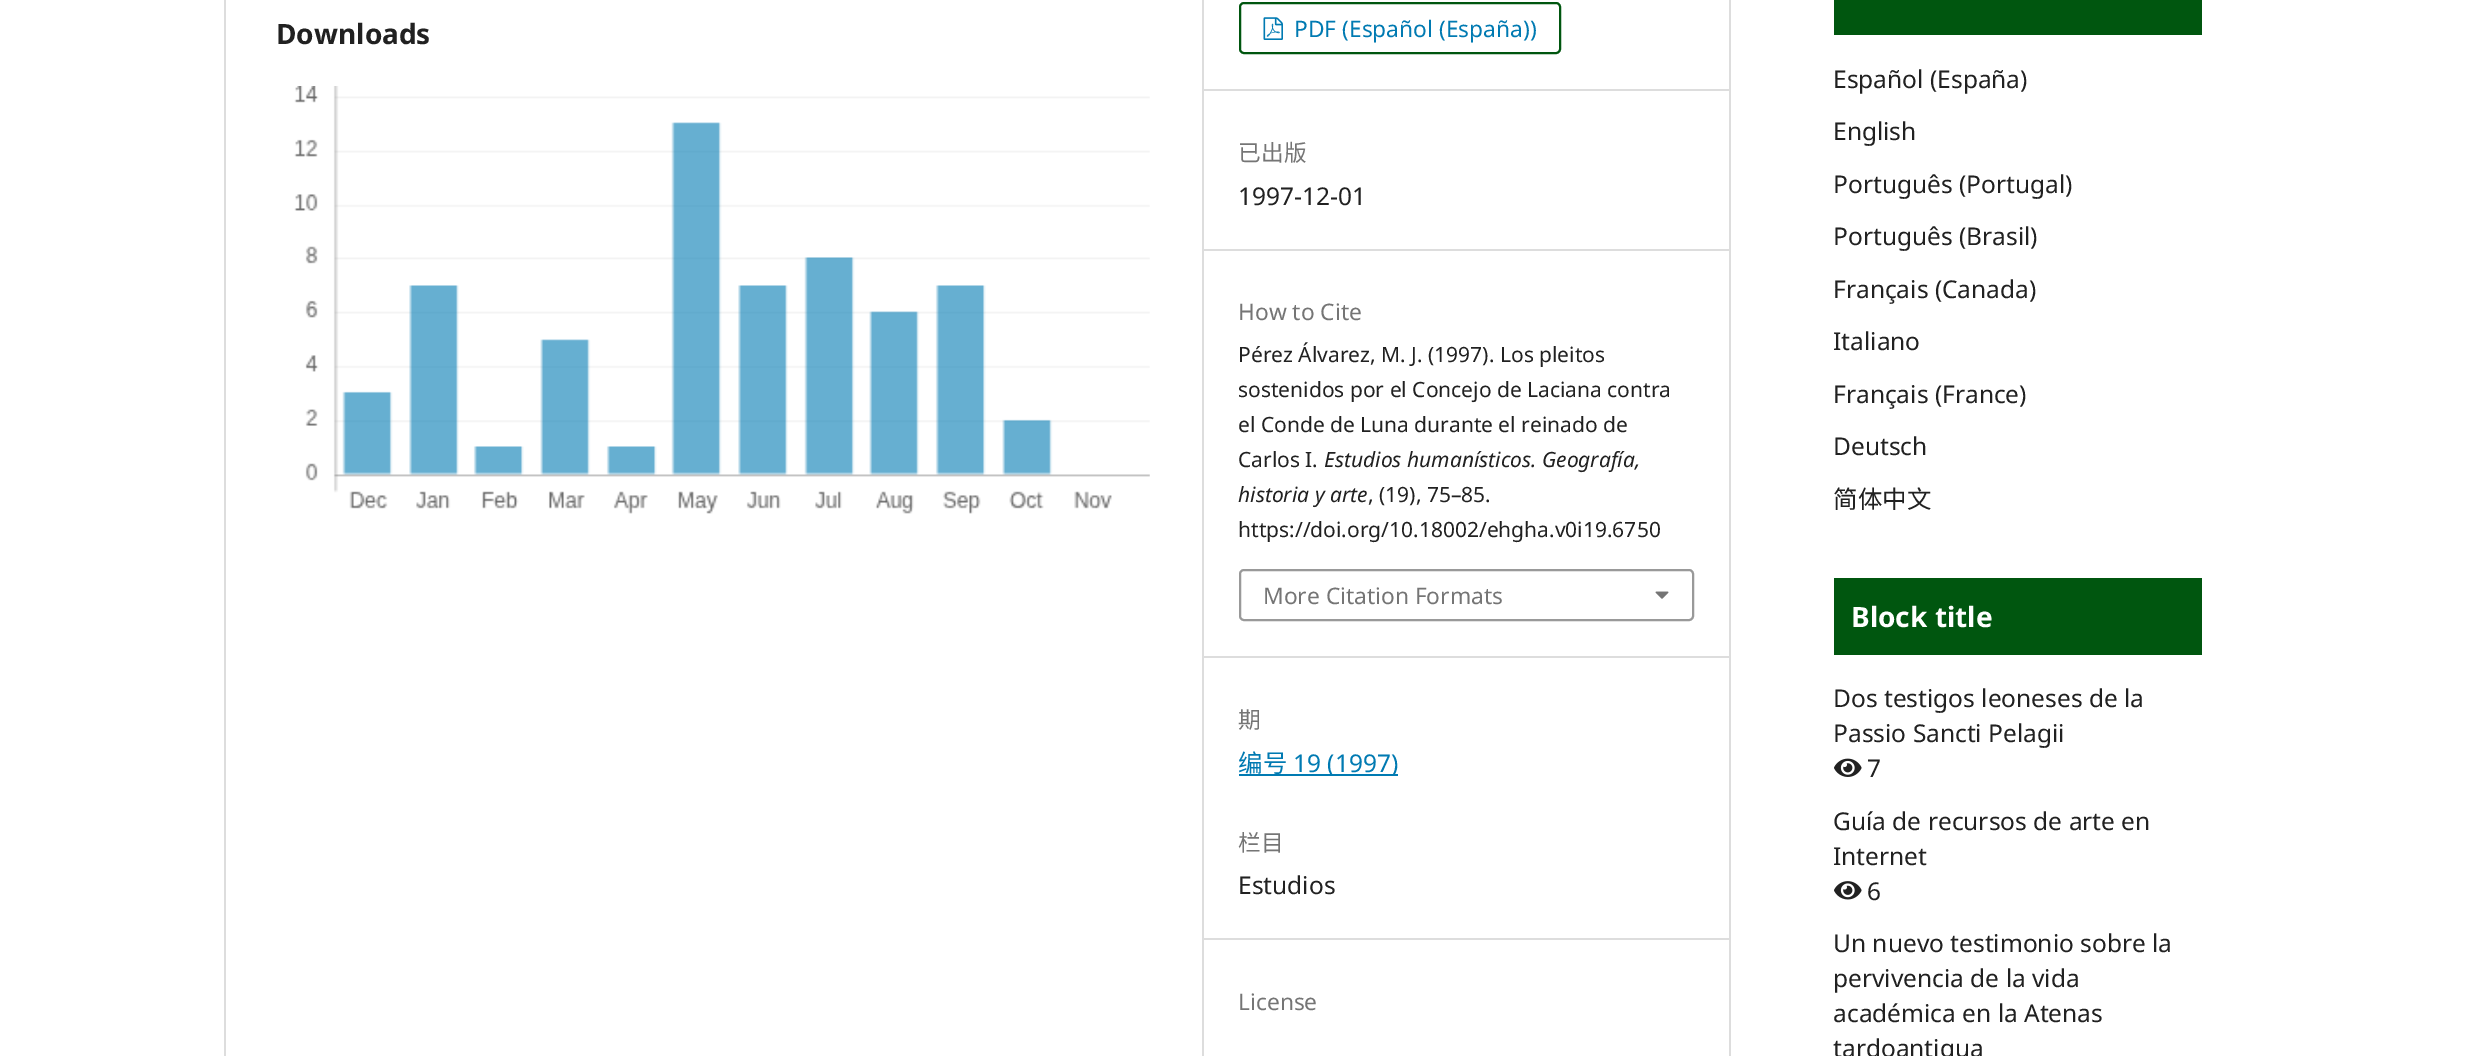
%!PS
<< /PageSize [2475 1056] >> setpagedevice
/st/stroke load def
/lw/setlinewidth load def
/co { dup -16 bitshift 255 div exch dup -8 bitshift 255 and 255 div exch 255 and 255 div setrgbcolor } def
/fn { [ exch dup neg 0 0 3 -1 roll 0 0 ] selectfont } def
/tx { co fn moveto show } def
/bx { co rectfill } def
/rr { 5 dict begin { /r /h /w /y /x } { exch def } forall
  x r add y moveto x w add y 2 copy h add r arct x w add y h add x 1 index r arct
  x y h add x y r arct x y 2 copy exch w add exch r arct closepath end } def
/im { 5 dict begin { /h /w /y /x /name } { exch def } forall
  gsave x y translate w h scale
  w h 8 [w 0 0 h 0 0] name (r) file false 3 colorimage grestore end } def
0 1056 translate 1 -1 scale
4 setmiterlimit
0 0 2475 1056 16#FFFFFF bx
224 0 2 1056 16#DDDDDD bx
(media/1.raw) 294 86 856 428 im
1202 0 2 1056 16#DDDDDD bx
1204 89 525 2 16#DDDDDD bx
16#00560F co
2 lw
1240 3 320 50 4 rr st
(media/2.raw) 1263 17 20 23 im
1204 249 525 2 16#DDDDDD bx
1204 656 525 2 16#DDDDDD bx
16#999999 co
1240 570 453 50 4 rr st
(media/3.raw) 1655 591 14 8 im
1204 938 525 2 16#DDDDDD bx
1239 774 159 2 16#007AB2 bx
1729 0 2 1056 16#DDDDDD bx
1834 0 368 35 16#00560F bx
1834 578 368 77 16#00560F bx
(media/4.raw) 1834 758 28 19 im
(media/5.raw) 1834 881 28 19 im
(Downloads) 276 44 /NotoSans-Bold 28 16#212121 tx
(PDF \(Español \(España\)\)) 1294 37 /NotoSans-Regular 22.75 16#007AB2 tx
(已出版) 1238 161 /NotoSansCJKSC-Regular 22.75 16#757575 tx
(1997-12-01) 1238 205 /NotoSans-Regular 24.5 16#212121 tx
(How to Cite) 1238 320 /NotoSans-Regular 22.75 16#757575 tx
(Pérez Álvarez, M. J. \(1997\). Los pleitos) 1238 362 /NotoSans-Regular 21 16#212121 tx
(sostenidos por el Concejo de Laciana contra) 1238 397 /NotoSans-Regular 21 16#212121 tx
(el Conde de Luna durante el reinado de) 1238 432 /NotoSans-Regular 21 16#212121 tx
(Carlos I.) 1238 467 /NotoSans-Regular 21 16#212121 tx
(Estudios humanísticos. Geografía,) 1324 467 /NotoSans-Italic 21 16#212121 tx
(historia y arte) 1238 502 /NotoSans-Italic 21 16#212121 tx
(, \(19\), 75–85.) 1368 502 /NotoSans-Regular 21 16#212121 tx
(https://doi.org/10.18002/ehgha.v0i19.6750) 1238 537 /NotoSans-Regular 21 16#212121 tx
(More Citation Formats) 1263 604 /NotoSans-Regular 22.75 16#757575 tx
(期) 1238 728 /NotoSansCJKSC-Regular 22.75 16#757575 tx
(编号) 1238 772 /NotoSansCJKSC-Regular 24.5 16#007AB2 tx
(19 \(1997\)) 1293 772 /NotoSans-Regular 24.5 16#007AB2 tx
(栏目) 1238 851 /NotoSansCJKSC-Regular 22.75 16#757575 tx
(Estudios) 1238 894 /NotoSans-Regular 24.5 16#212121 tx
(License) 1238 1010 /NotoSans-Regular 22.75 16#757575 tx
(Español \(España\)) 1833 88 /NotoSans-Regular 24.5 16#212121 tx
(English) 1833 140 /NotoSans-Regular 24.5 16#212121 tx
(Português \(Portugal\)) 1833 193 /NotoSans-Regular 24.5 16#212121 tx
(Português \(Brasil\)) 1833 245 /NotoSans-Regular 24.5 16#212121 tx
(Français \(Canada\)) 1833 298 /NotoSans-Regular 24.5 16#212121 tx
(Italiano) 1833 350 /NotoSans-Regular 24.5 16#212121 tx
(Français \(France\)) 1833 403 /NotoSans-Regular 24.5 16#212121 tx
(Deutsch) 1833 455 /NotoSans-Regular 24.5 16#212121 tx
(简体中文) 1833 508 /NotoSansCJKSC-Regular 24.5 16#212121 tx
(Block title) 1851 627 /NotoSans-Bold 28 16#FFFFFF tx
(Dos testigos leoneses de la) 1833 707 /NotoSans-Regular 24.5 16#212121 tx
(Passio Sancti Pelagii) 1833 742 /NotoSans-Regular 24.5 16#212121 tx
(7) 1867 777 /NotoSans-Regular 24.5 16#212121 tx
(Guía de recursos de arte en) 1833 830 /NotoSans-Regular 24.5 16#212121 tx
(Internet) 1833 865 /NotoSans-Regular 24.5 16#212121 tx
(6) 1867 900 /NotoSans-Regular 24.5 16#212121 tx
(Un nuevo testimonio sobre la) 1833 952 /NotoSans-Regular 24.5 16#212121 tx
(pervivencia de la vida) 1833 987 /NotoSans-Regular 24.5 16#212121 tx
(académica en la Atenas) 1833 1022 /NotoSans-Regular 24.5 16#212121 tx
(tardoantigua) 1833 1057 /NotoSans-Regular 24.5 16#212121 tx
showpage
